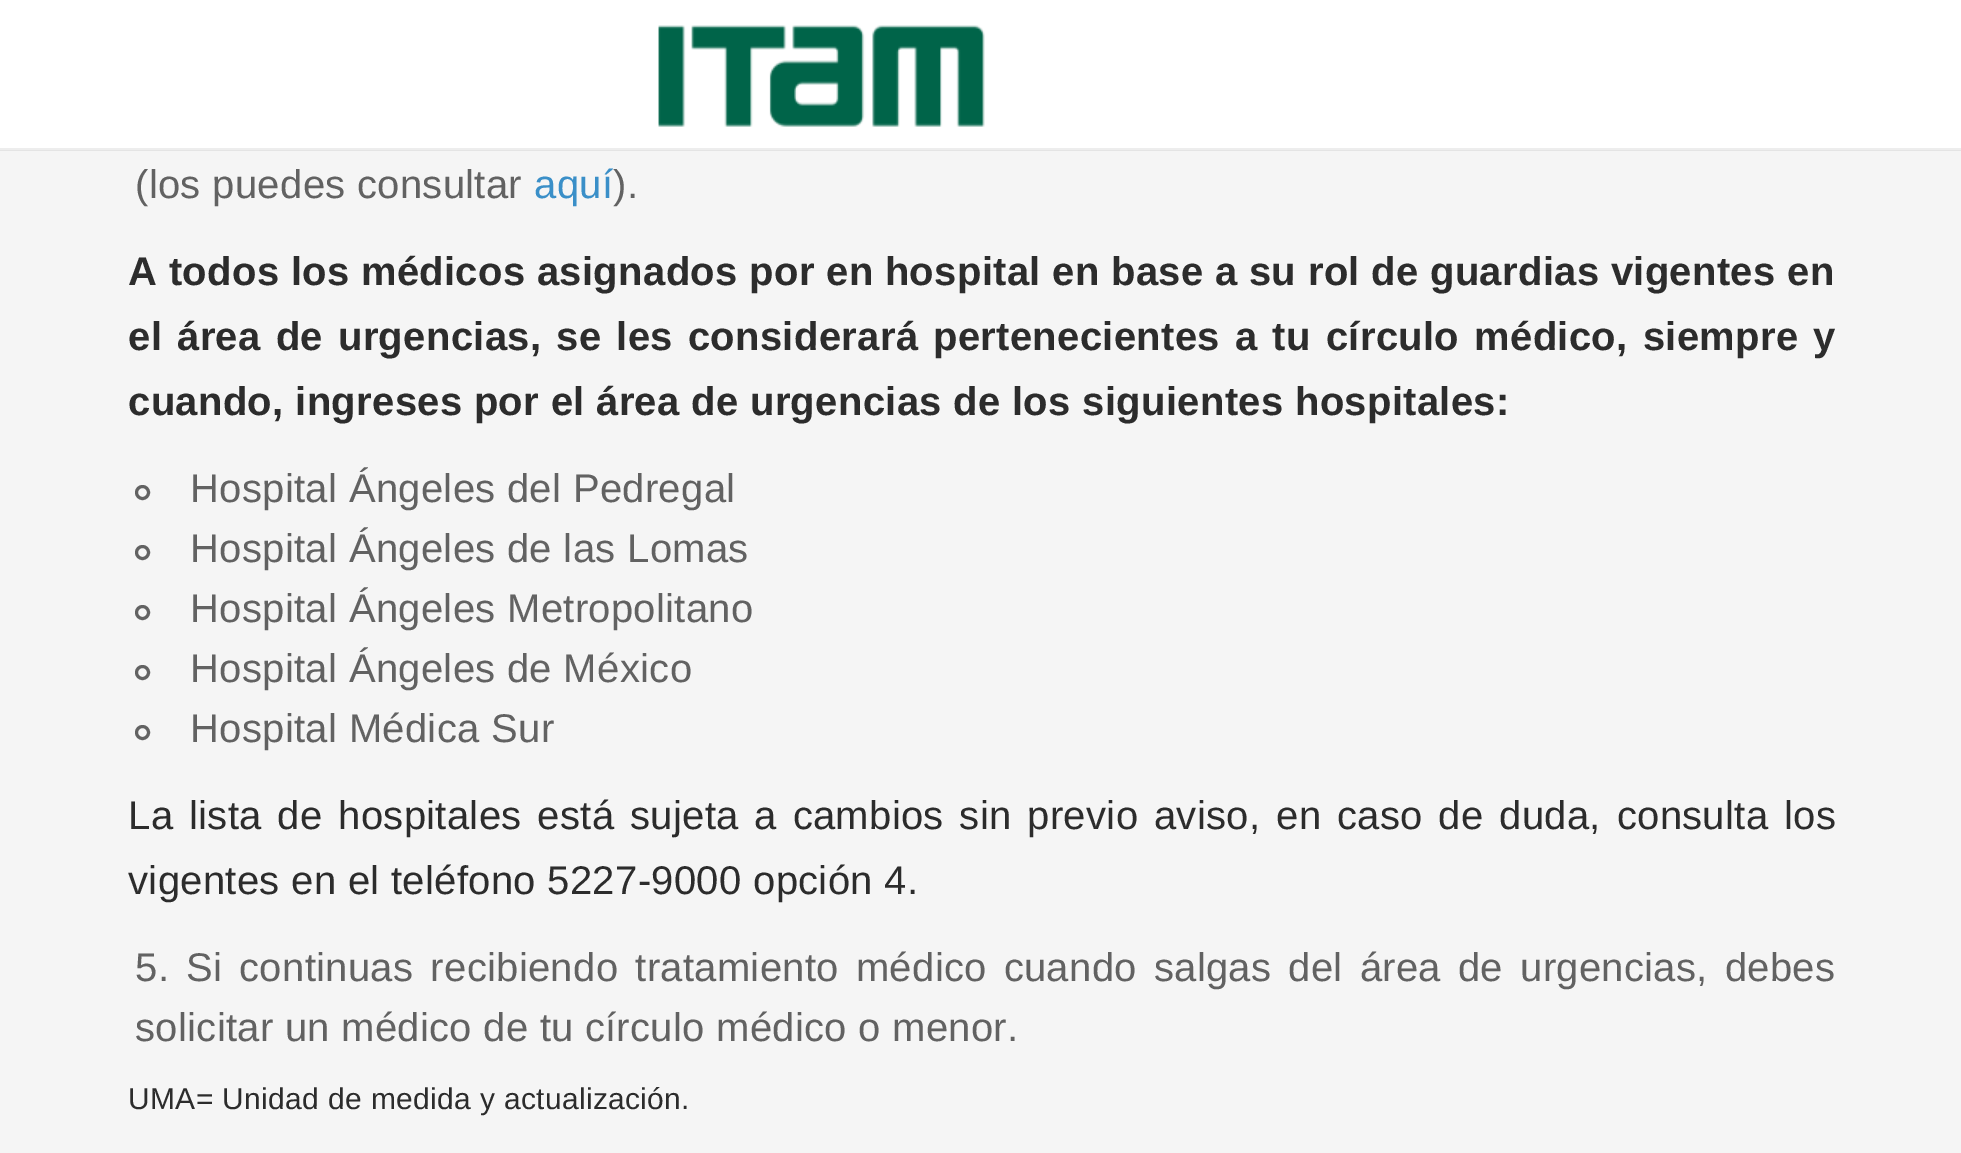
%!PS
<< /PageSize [1961 1153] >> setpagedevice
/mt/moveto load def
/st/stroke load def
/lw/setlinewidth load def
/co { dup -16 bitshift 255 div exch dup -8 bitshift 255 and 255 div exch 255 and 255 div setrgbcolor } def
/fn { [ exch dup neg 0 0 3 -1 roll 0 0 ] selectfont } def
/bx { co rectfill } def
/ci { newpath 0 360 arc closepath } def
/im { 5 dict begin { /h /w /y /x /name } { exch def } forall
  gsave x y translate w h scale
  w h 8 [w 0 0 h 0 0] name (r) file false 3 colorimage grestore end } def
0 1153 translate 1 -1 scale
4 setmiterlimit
0 0 1961 1153 16#F5F5F5 bx
0 150 1961 1 16#E4E4E4 bx
0 0 1961 148 16#FFFFFF bx
0 148 1961 2 16#EDEDED bx
(media/1.raw) 658 25 327 102 im
16#626262 co
3 lw
142.5 492.5 6 ci st
142.5 552.5 6 ci st
142.5 612.5 6 ci st
142.5 672.5 6 ci st
142.5 732.5 6 ci st
/LiberationSans-Regular 40 fn
135 198 mt .33 0 (\(los puedes consultar) ashow
16#3A8FC8 co
534 198 mt .33 0 (aquí) ashow
16#626262 co
613 198 mt .33 0 (\).) ashow
/LiberationSans-Bold 40 fn
16#2C2C2C co
128 285 mt .33 0 (A todos los médicos asignados por en hospital en base a su rol de guardias vigentes en) ashow
128 350 mt 3.5 0 32 .33 0 (el área de urgencias, se les considerará pertenecientes a tu círculo médico, siempre y) awidthshow
128 415 mt .33 0 (cuando, ingreses por el área de urgencias de los siguientes hospitales:) ashow
/LiberationSans-Regular 40 fn
16#626262 co
190 502 mt .33 0 (Hospital Ángeles del Pedregal) ashow
190 562 mt .33 0 (Hospital Ángeles de las Lomas) ashow
190 622 mt .33 0 (Hospital Ángeles Metropolitano) ashow
190 682 mt .33 0 (Hospital Ángeles de México) ashow
190 742 mt .33 0 (Hospital Médica Sur) ashow
16#2C2C2C co
128 829 mt 4.25 0 32 .33 0 (La lista de hospitales está sujeta a cambios sin previo aviso, en caso de duda, consulta los) awidthshow
128 894 mt .33 0 (vigentes en el teléfono 5227-9000 opción 4.) ashow
16#626262 co
135 981 mt .33 0 (5.) ashow
186 981 mt 5.5 0 32 .33 0 (Si continuas recibiendo tratamiento médico cuando salgas del área de urgencias, debes) awidthshow
135 1041 mt -.25 0 32 .33 0 (solicitar un médico de tu círculo médico o menor.) awidthshow
/LiberationSans-Regular 30 fn
16#2C2C2C co
128 1109 mt .33 0 (UMA= Unidad de medida y actualización.) ashow
showpage
